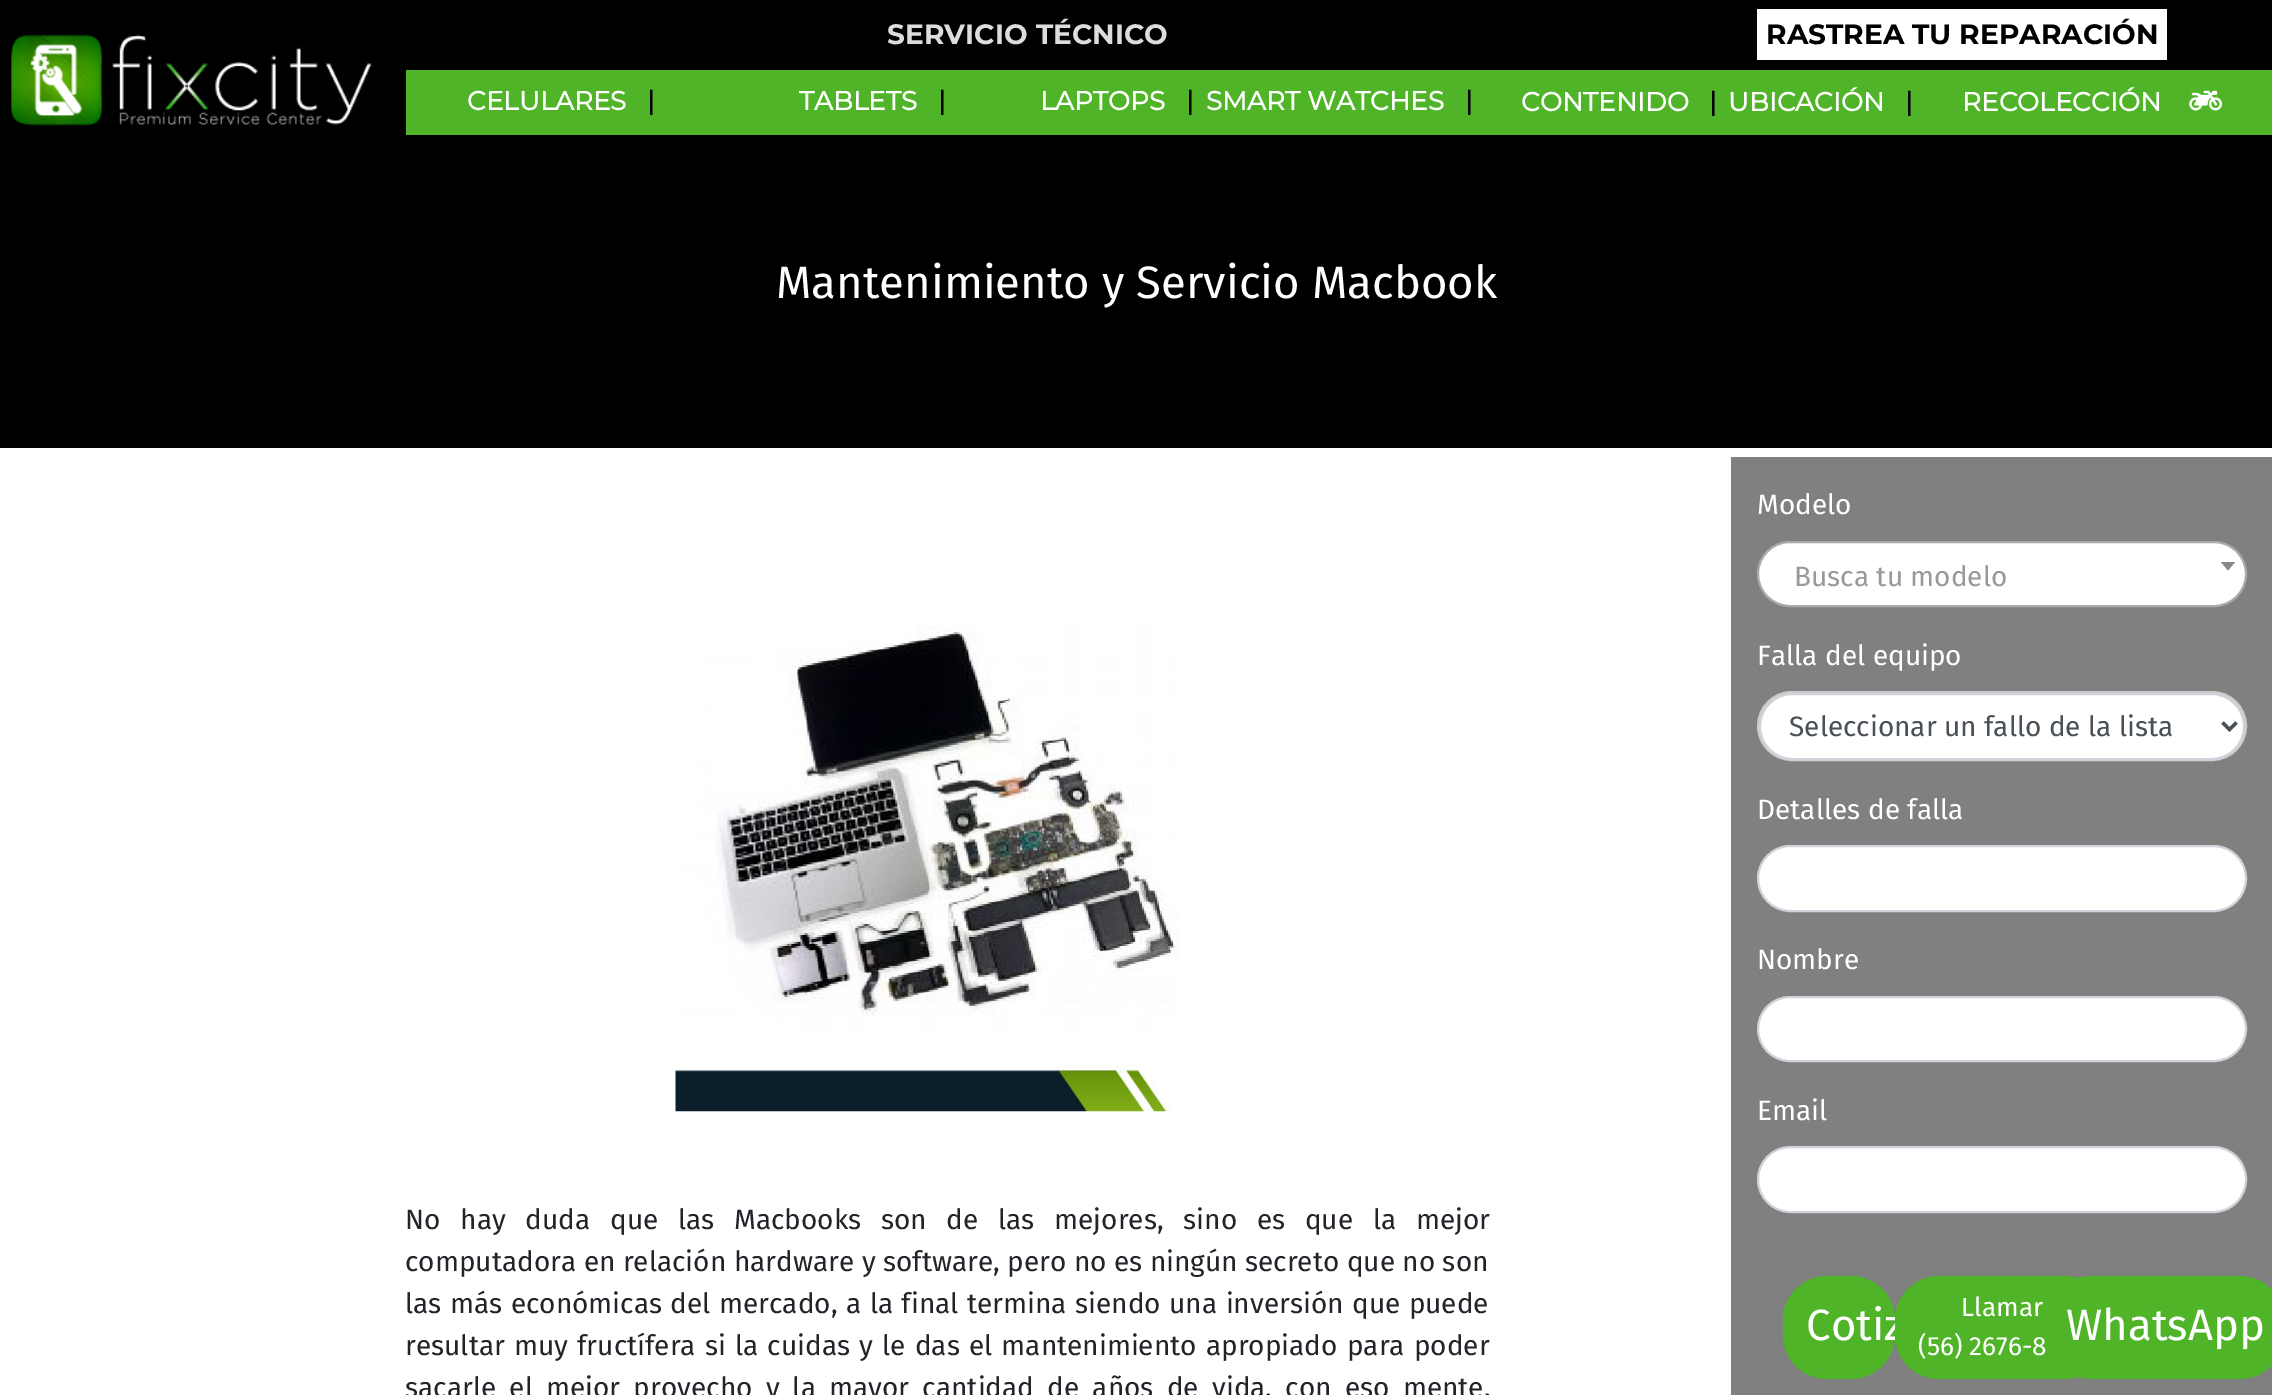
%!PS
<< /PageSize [2272 1395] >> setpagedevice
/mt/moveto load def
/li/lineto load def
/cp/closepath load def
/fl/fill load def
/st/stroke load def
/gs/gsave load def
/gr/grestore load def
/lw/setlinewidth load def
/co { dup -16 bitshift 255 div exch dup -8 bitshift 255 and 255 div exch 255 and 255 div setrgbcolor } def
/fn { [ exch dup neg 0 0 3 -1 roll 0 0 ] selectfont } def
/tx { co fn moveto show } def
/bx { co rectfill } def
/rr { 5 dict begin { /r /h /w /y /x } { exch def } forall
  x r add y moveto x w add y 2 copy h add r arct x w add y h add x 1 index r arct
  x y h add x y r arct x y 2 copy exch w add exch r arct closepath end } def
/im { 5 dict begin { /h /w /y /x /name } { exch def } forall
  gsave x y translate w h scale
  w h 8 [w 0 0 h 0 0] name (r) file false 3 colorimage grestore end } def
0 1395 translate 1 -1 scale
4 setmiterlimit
0 0 2272 1395 16#FFFFFF bx
0 0 2272 135 16#000000 bx
(media/1.raw) 11 34 361 92 im
1757 9 410 51 16#FFFFFF bx
406 70 1866 65 16#50B428 bx
(media/2.raw) 2189 90 34 21 im
0 135 2272 313 16#000000 bx
(media/3.raw) 675 625 504 487 im
1731 457 541 938 16#808080 bx
16#FFFFFF co
1758 542 488 64 32 rr gs fl gr
16#AAAAAA co
2 lw
st
16#888888 co
2221 562 mt 2235 562 li 2228 570.5 li cp fl
16#CCCCCC co
1758 692 488 68 34 rr gs fl gr
st
16#FFFFFF co
1760 694 484 65 32.5 rr gs fl gr
16#CED4DA co
st
16#495057 co
3.5 lw
2222.5 722.5 mt 2229.5 729.5 li 2236.5 722.5 li st
16#FFFFFF co
1758 846 488 65 32.5 rr gs fl gr
16#CED4DA co
2 lw
st
16#FFFFFF co
1758 997 488 64 32 rr gs fl gr
16#CED4DA co
st
16#FFFFFF co
1758 1147 488 65 32.5 rr gs fl gr
16#CED4DA co
st
16#50B428 co
1783 1276 112 103 44 rr fl
(SERVICIO TÉCNICO) 887 44 /Montserrat-Bold 28 16#DDDDDD tx
(RASTREA TU REPARACIÓN) 1766 44 /Montserrat-Bold 28 16#000000 tx
(CELULARES) 467 110 /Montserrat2-Bold 26.25 16#FFFFFF tx
(|) 647 110 /Montserrat2-Bold 26.25 16#000000 tx
(TABLETS) 799 110 /Montserrat2-Bold 26.25 16#FFFFFF tx
(|) 938 110 /Montserrat2-Bold 26.25 16#000000 tx
(LAPTOPS) 1040 110 /Montserrat2-Bold 26.25 16#FFFFFF tx
(|) 1186 110 /Montserrat2-Bold 26.25 16#000000 tx
(SMART WATCHES) 1206 110 /Montserrat2-Bold 26.25 16#FFFFFF tx
(|) 1465 110 /Montserrat2-Bold 26.25 16#000000 tx
(CONTENIDO) 1521 111 /Montserrat2-Bold 26.25 16#FFFFFF tx
(|) 1709 111 /Montserrat2-Bold 26.25 16#000000 tx
(UBICACIÓN) 1728 111 /Montserrat2-Bold 26.25 16#FFFFFF tx
(|) 1905 111 /Montserrat2-Bold 26.25 16#000000 tx
(RECOLECCIÓN) 1962 111 /Montserrat2-Bold 26.25 16#FFFFFF tx
(Mantenimiento y Servicio Macbook) 776 298 /FiraSans-Regular 45.5 16#FFFFFF tx
/FiraSans-Regular 28 fn
16#212529 co
405 1229 mt 12.25 0 32 (No hay duda que las Macbooks son de las mejores, sino es que la mejor) widthshow
(computadora en relación hardware y software, pero no es ningún secreto que no son) 405 1271 /FiraSans-Regular 28 16#212529 tx
405 1313 mt 1 0 32 (las más económicas del mercado, a la final termina siendo una inversión que puede) widthshow
405 1355 mt 1.7 0 32 (resultar muy fructífera si la cuidas y le das el mantenimiento apropiado para poder) widthshow
405 1397 mt 5.75 0 32 (sacarle el mejor provecho y la mayor cantidad de años de vida, con eso mente,) widthshow
(Modelo) 1757 514 /FiraSans-Regular 28 16#FFFFFF tx
(Busca tu modelo) 1794 586 /FiraSans-Regular 28 16#999999 tx
(Falla del equipo) 1757 665 /FiraSans-Regular 28 16#FFFFFF tx
(Seleccionar un fallo de la lista) 1789 736 /FiraSans-Regular 28 16#495057 tx
(Detalles de falla) 1757 819 /FiraSans-Regular 28 16#FFFFFF tx
(Nombre) 1757 969 /FiraSans-Regular 28 16#FFFFFF tx
(Email) 1757 1120 /FiraSans-Regular 28 16#FFFFFF tx
(Cotiz) 1806 1340 /FiraSans-Regular 43.75 16#FFFFFF tx
16#50B428 co
1895 1276 214 103 44 rr fl
(Llamar) 1961 1316 /FiraSans-Regular 26.25 16#FFFFFF tx
(\(56\) 2676-8) 1918 1355 /FiraSans-Regular 26.25 16#FFFFFF tx
16#50B428 co
2048 1276 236 103 44 rr fl
(WhatsApp) 2066 1340 /FiraSans-Regular 43.75 16#FFFFFF tx
showpage
